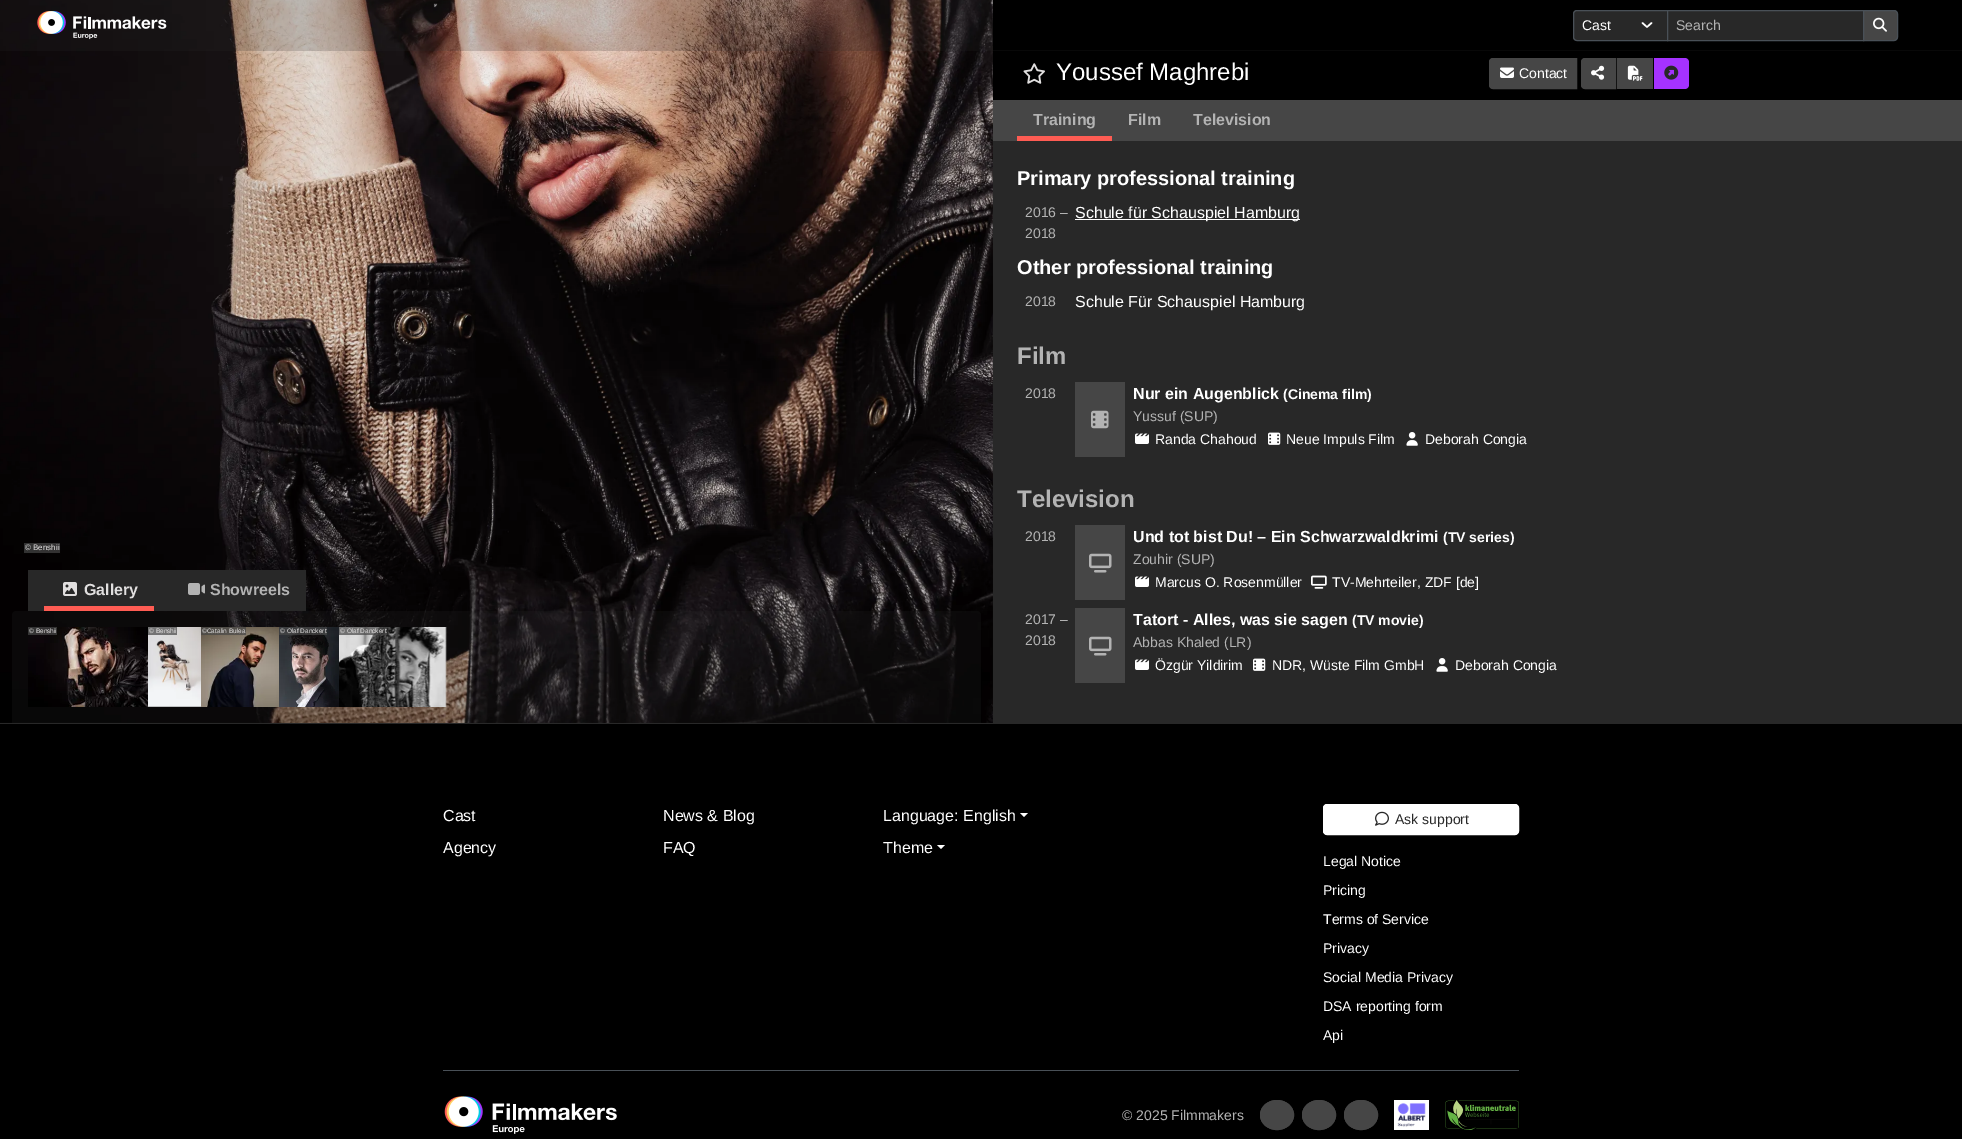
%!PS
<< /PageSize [1962 1139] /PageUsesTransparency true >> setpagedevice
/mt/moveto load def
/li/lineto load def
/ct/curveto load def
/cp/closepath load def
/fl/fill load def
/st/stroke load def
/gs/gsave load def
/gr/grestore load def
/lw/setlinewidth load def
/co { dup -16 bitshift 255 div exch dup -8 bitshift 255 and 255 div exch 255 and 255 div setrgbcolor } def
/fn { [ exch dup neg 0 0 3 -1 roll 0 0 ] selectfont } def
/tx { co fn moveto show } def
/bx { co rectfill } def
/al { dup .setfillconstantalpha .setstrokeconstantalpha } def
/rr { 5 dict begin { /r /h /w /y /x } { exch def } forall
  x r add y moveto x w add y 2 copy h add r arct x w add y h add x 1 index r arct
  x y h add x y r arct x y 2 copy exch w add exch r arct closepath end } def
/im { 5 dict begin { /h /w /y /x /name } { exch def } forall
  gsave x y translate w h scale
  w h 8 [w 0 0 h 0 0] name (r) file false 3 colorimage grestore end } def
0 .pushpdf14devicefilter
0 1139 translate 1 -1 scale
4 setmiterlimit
0 0 1962 1139 16#282828 bx
(media/3.raw) 0 0 993 723 im
993 50 969 50 16#000000 bx
0.2 al
0 0 1962 51 16#282828 bx
1 al
(media/1.raw) 37 11 130 29 im
993 0 969 50 16#000000 bx
16#282828 co
1577 10 mt 1668 10 li 1668 41 li 1577 41 li 1575 41 1573 39 1573 37 ct 1573 14 li 1573 12 1575 10 1577 10 ct cp fl
16#FFFFFF co
1.5 lw
1 setlinecap
1 setlinejoin
1642.5 23 mt 1647 27 li 1651.5 23 li st
16#495057 co
1 lw
0 setlinecap
0 setlinejoin
1577 10.5 mt 1667.5 10.5 li 1667.5 40.5 li 1577 40.5 li 1575 40.5 1573.5 39 1573.5 37 ct 1573.5 14 li 1573.5 12 1575 10.5 1577 10.5 ct cp st
16#282828 co
1667.5 10.5 mt 1863.5 10.5 li 1863.5 40.5 li 1667.5 40.5 li cp gs fl gr
16#495057 co
st
16#464646 co
1863.5 10.5 mt 1894 10.5 li 1896 10.5 1897.5 12 1897.5 14 ct 1897.5 37 li 1897.5 39 1896 40.5 1894 40.5 ct 1863.5 40.5 li cp gs fl gr
16#495057 co
st
(media/2.raw) 1873 17 14 15 im
0.7 al
24 543 36 10 16#464646 bx
1 al
(media/4.raw) 1023 63 22 21 im
1493 58.5 mt 1576.5 58.5 li 1576.5 88.5 li 1493 88.5 li 1491 88.5 1489.5 87 1489.5 85 ct 1489.5 62 li 1489.5 60 1491 58.5 1493 58.5 ct cp gs fl gr
st
(media/5.raw) 1500 67 14 11 im
1585 58.5 mt 1615.5 58.5 li 1615.5 88.5 li 1585 88.5 li 1583 88.5 1581.5 87 1581.5 85 ct 1581.5 62 li 1581.5 60 1583 58.5 1585 58.5 ct cp gs fl gr
st
(media/6.raw) 1591 65 14 15 im
1617 58 36 31 16#464646 bx
(media/7.raw) 1627 65 16 16 im
16#A532FF co
1654 58 mt 1685 58 li 1687 58 1689 60 1689 62 ct 1689 85 li 1689 87 1687 89 1685 89 ct 1654 89 li cp fl
(media/8.raw) 1664 65 15 15 im
993 100 969 41 16#464646 bx
1017 136 95 5 16#FE5C53 bx
1075 219 225 1 16#FFFFFF bx
1075 382 50 75 16#464646 bx
(media/9.raw) 1091 410 18 19 im
(media/10.raw) 1135 433 14 11 im
(media/11.raw) 1268 432 13 13 im
(media/12.raw) 1406 432 12 14 im
1075 525 50 75 16#464646 bx
(media/13.raw) 1089 553 23 20 im
(media/10.raw) 1135 576 14 11 im
(media/14.raw) 1311 575 16 14 im
1075 608 50 75 16#464646 bx
(media/13.raw) 1089 636 23 20 im
(media/10.raw) 1135 659 14 11 im
(media/11.raw) 1253 658 13 13 im
(media/12.raw) 1436 658 12 14 im
28 570 278 41 16#282828 bx
44 606 110 5 16#FE5C53 bx
(media/15.raw) 63 582 14 14 im
(media/16.raw) 188 583 17 12 im
0.2 al
16#282828 co
16 611 mt 977 611 li 979 611 981 613 981 615 ct 981 723 li 12 723 li 12 615 li 12 613 14 611 16 611 ct cp fl
1 al
(media/17.raw) 28 627 120 80 im
0.7 al
28 627 29 8 16#464646 bx
1 al
(media/18.raw) 148 627 53 80 im
0.7 al
148 627 29 8 16#464646 bx
1 al
(media/19.raw) 201 627 78 80 im
0.7 al
201 627 45 8 16#464646 bx
1 al
(media/20.raw) 279 627 60 80 im
0.7 al
279 627 48 8 16#464646 bx
1 al
(media/21.raw) 339 627 108 80 im
0.7 al
339 627 48 8 16#464646 bx
1 al
0 724 1962 415 16#000000 bx
16#FFFFFF co
1020 813 mt 1028 813 li 1024 817 li cp fl
937 845 mt 945 845 li 941 849 li cp fl
1323.5 804.5 195 30 3.5 rr gs fl gr
st
(media/22.raw) 1375 811 14 15 im
443 1070 1076 1 16#495057 bx
(media/23.raw) 444 1096 173 38 im
16#464646 co
1277 1100 mt 1286.5 1100 1294 1106.5 1294 1115 ct 1294 1123.5 1286.5 1130 1277 1130 ct 1267.5 1130 1260 1123.5 1260 1115 ct 1260 1106.5 1267.5 1100 1277 1100 ct cp fl
1277 1100.5 mt 1286 1100.5 1293.5 1107 1293.5 1115 ct 1293.5 1123 1286 1129.5 1277 1129.5 ct 1268 1129.5 1260.5 1123 1260.5 1115 ct 1260.5 1107 1268 1100.5 1277 1100.5 ct cp st
1319 1100 mt 1328.5 1100 1336 1106.5 1336 1115 ct 1336 1123.5 1328.5 1130 1319 1130 ct 1309.5 1130 1302 1123.5 1302 1115 ct 1302 1106.5 1309.5 1100 1319 1100 ct cp fl
1319 1100.5 mt 1328 1100.5 1335.5 1107 1335.5 1115 ct 1335.5 1123 1328 1129.5 1319 1129.5 ct 1310 1129.5 1302.5 1123 1302.5 1115 ct 1302.5 1107 1310 1100.5 1319 1100.5 ct cp st
1361 1100 mt 1370.5 1100 1378 1106.5 1378 1115 ct 1378 1123.5 1370.5 1130 1361 1130 ct 1351.5 1130 1344 1123.5 1344 1115 ct 1344 1106.5 1351.5 1100 1361 1100 ct cp fl
1361 1100.5 mt 1370 1100.5 1377.5 1107 1377.5 1115 ct 1377.5 1123 1370 1129.5 1361 1129.5 ct 1352 1129.5 1344.5 1123 1344.5 1115 ct 1344.5 1107 1352 1100.5 1361 1100.5 ct cp st
(media/24.raw) 1394 1100 35 30 im
(media/25.raw) 1445 1100 74 30 im
(Cast) 1582 30 /LiberationSans-Regular 14 16#FFFFFF tx
(Search) 1676 30 /LiberationSans-Regular 14 16#B3B3B3 tx
(© Benshii) 25 550 /LiberationSans-Regular 8 16#E1DFDF tx
(Youssef Maghrebi) 1056 80 /LiberationSans-Regular 24 16#FFFFFF tx
(Contact) 1519 78 /LiberationSans-Regular 14 16#FFFFFF tx
(Training) 1033 125 /LiberationSans-Bold 16 16#B3B3B3 tx
(Film) 1128 125 /LiberationSans-Bold 16 16#B3B3B3 tx
(Television) 1193 125 /LiberationSans-Bold 16 16#B3B3B3 tx
(Primary professional training) 1017 185 /LiberationSans-Bold 20 16#FFFFFF tx
(2016 –) 1025 217 /LiberationSans-Regular 14 16#B3B3B3 tx
(2018) 1025 238 /LiberationSans-Regular 14 16#B3B3B3 tx
(Schule für Schauspiel Hamburg) 1075 218 /LiberationSans-Regular 16 16#FFFFFF tx
(Other professional training) 1017 274 /LiberationSans-Bold 20 16#FFFFFF tx
(2018) 1025 306 /LiberationSans-Regular 14 16#B3B3B3 tx
(Schule Für Schauspiel Hamburg) 1075 307 /LiberationSans-Regular 16 16#FFFFFF tx
(Film) 1017 364 /LiberationSans-Bold 24 16#B3B3B3 tx
(2018) 1025 398 /LiberationSans-Regular 14 16#B3B3B3 tx
(Nur ein Augenblick) 1133 399 /LiberationSans-Bold 16 16#FFFFFF tx
(\(Cinema film\)) 1283 399 /LiberationSans-Bold 14 16#FFFFFF tx
(Yussuf \(SUP\)) 1133 421 /LiberationSans-Regular 14 16#B3B3B3 tx
(Randa Chahoud) 1155 444 /LiberationSans-Regular 14 16#FFFFFF tx
(Neue Impuls Film) 1286 444 /LiberationSans-Regular 14 16#FFFFFF tx
(Deborah Congia) 1425 444 /LiberationSans-Regular 14 16#FFFFFF tx
(Television) 1017 507 /LiberationSans-Bold 24 16#B3B3B3 tx
(2018) 1025 541 /LiberationSans-Regular 14 16#B3B3B3 tx
(Und tot bist Du! – Ein Schwarzwaldkrimi) 1133 542 /LiberationSans-Bold 16 16#FFFFFF tx
(\(TV series\)) 1443 542 /LiberationSans-Bold 14 16#FFFFFF tx
(Zouhir \(SUP\)) 1133 564 /LiberationSans-Regular 14 16#B3B3B3 tx
(Marcus O. Rosenmüller) 1155 587 /LiberationSans-Regular 14 16#FFFFFF tx
(TV-Mehrteiler, ZDF [de]) 1332 587 /LiberationSans-Regular 14 16#FFFFFF tx
(2017 –) 1025 624 /LiberationSans-Regular 14 16#B3B3B3 tx
(2018) 1025 645 /LiberationSans-Regular 14 16#B3B3B3 tx
(Tatort - Alles, was sie sagen) 1133 625 /LiberationSans-Bold 16 16#FFFFFF tx
(\(TV movie\)) 1352 625 /LiberationSans-Bold 14 16#FFFFFF tx
(Abbas Khaled \(LR\)) 1133 647 /LiberationSans-Regular 14 16#B3B3B3 tx
(Özgür Yildirim) 1155 670 /LiberationSans-Regular 14 16#FFFFFF tx
(NDR, Wüste Film GmbH) 1272 670 /LiberationSans-Regular 14 16#FFFFFF tx
(Deborah Congia) 1455 670 /LiberationSans-Regular 14 16#FFFFFF tx
(Gallery) 84 595 /LiberationSans-Bold 16 16#E1DFDF tx
(Showreels) 210 595 /LiberationSans-Bold 16 16#B3B3B3 tx
(© Benshii) 29 633 /LiberationSans-Regular 6.5 16#E1DFDF tx
(© Benshii) 149 633 /LiberationSans-Regular 6.5 16#E1DFDF tx
(©Catalin Bulea) 202 633 /LiberationSans-Regular 6.5 16#E1DFDF tx
(© Olaf Danckert) 280 633 /LiberationSans-Regular 6.5 16#E1DFDF tx
(© Olaf Danckert) 340 633 /LiberationSans-Regular 6.5 16#E1DFDF tx
(Cast) 443 821 /LiberationSans-Regular 16 16#FFFFFF tx
(Agency) 443 853 /LiberationSans-Regular 16 16#FFFFFF tx
(News & Blog) 663 821 /LiberationSans-Regular 16 16#FFFFFF tx
(FAQ) 663 853 /LiberationSans-Regular 16 16#FFFFFF tx
(Language: English) 883 821 /LiberationSans-Regular 16 16#FFFFFF tx
(Theme) 883 853 /LiberationSans-Regular 16 16#FFFFFF tx
(Ask support) 1395 824 /LiberationSans-Regular 14 16#282828 tx
(Legal Notice) 1323 866 /LiberationSans-Regular 14 16#FFFFFF tx
(Pricing) 1323 895 /LiberationSans-Regular 14 16#FFFFFF tx
(Terms of Service) 1323 924 /LiberationSans-Regular 14 16#FFFFFF tx
(Privacy) 1323 953 /LiberationSans-Regular 14 16#FFFFFF tx
(Social Media Privacy) 1323 982 /LiberationSans-Regular 14 16#FFFFFF tx
(DSA reporting form) 1323 1011 /LiberationSans-Regular 14 16#FFFFFF tx
(Api) 1323 1040 /LiberationSans-Regular 14 16#FFFFFF tx
(© 2025 Filmmakers) 1122 1120 /LiberationSans-Regular 14 16#B3B3B3 tx
.poppdf14devicefilter showpage
